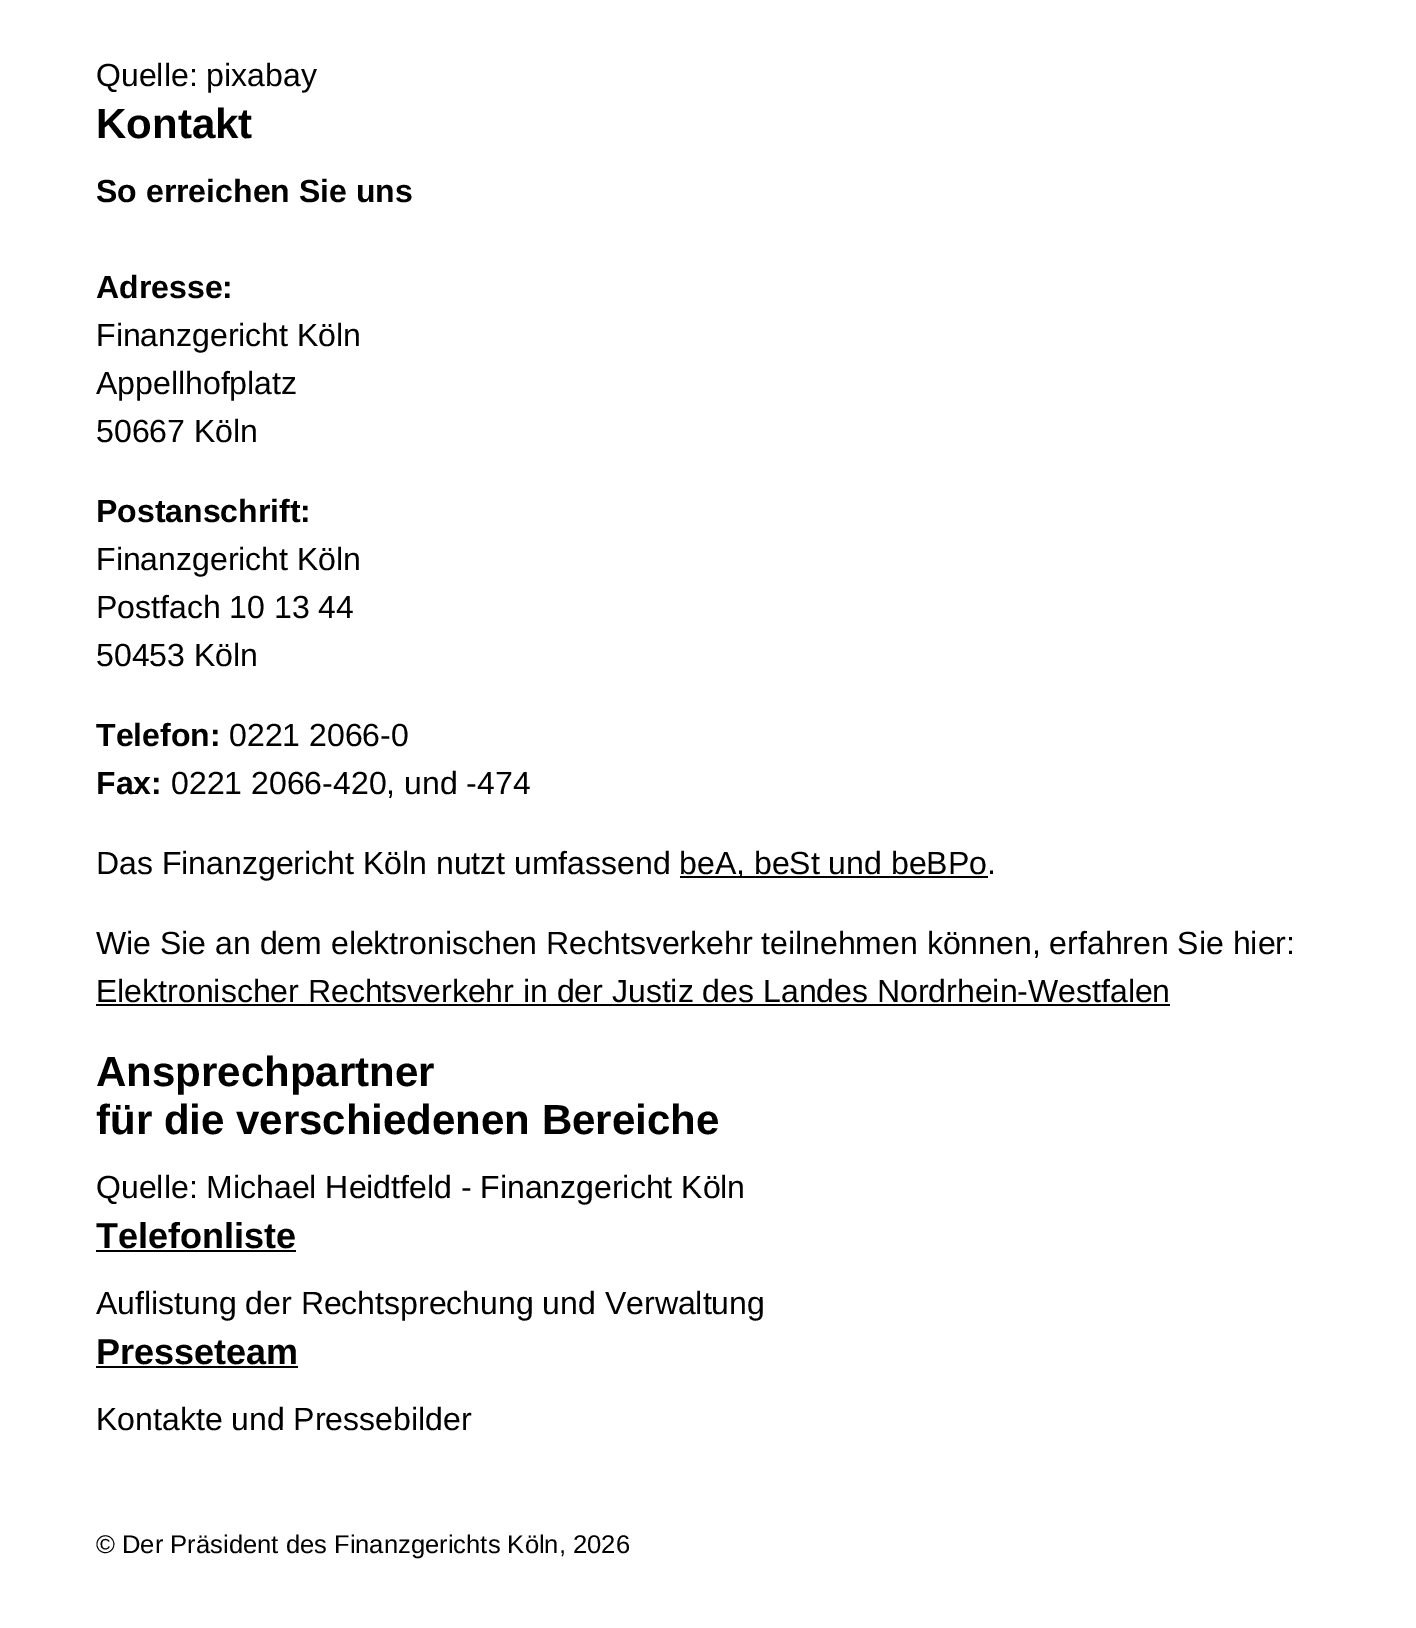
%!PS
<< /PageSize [1416 1628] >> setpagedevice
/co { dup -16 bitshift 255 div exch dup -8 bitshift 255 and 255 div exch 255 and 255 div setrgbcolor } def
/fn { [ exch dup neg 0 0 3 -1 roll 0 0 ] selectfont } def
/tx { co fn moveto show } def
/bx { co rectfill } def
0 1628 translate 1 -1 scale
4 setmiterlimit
0 0 1416 1628 16#FFFFFF bx
680 876 308 2 16#000000 bx
96 1004 1074 2 16#000000 bx
96 1250 200 2 16#000000 bx
96 1366 202 2 16#000000 bx
(Quelle: pixabay) 96 86 /LiberationSans-Regular 32 16#000000 tx
(Kontakt) 96 138 /LiberationSans-Bold 42 16#000000 tx
(So erreichen Sie uns) 96 202 /LiberationSans-Bold 32 16#000000 tx
(Adresse:) 96 298 /LiberationSans-Bold 32 16#000000 tx
(Finanzgericht Köln) 96 346 /LiberationSans-Regular 32 16#000000 tx
(Appellhofplatz) 96 394 /LiberationSans-Regular 32 16#000000 tx
(50667 Köln) 96 442 /LiberationSans-Regular 32 16#000000 tx
(Postanschrift:) 96 522 /LiberationSans-Bold 32 16#000000 tx
(Finanzgericht Köln) 96 570 /LiberationSans-Regular 32 16#000000 tx
(Postfach 10 13 44) 96 618 /LiberationSans-Regular 32 16#000000 tx
(50453 Köln) 96 666 /LiberationSans-Regular 32 16#000000 tx
(Telefon:) 96 746 /LiberationSans-Bold 32 16#000000 tx
(0221 2066-0) 229 746 /LiberationSans-Regular 32 16#000000 tx
(Fax:) 96 794 /LiberationSans-Bold 32 16#000000 tx
(0221 2066-420, und -474) 171 794 /LiberationSans-Regular 32 16#000000 tx
(Das Finanzgericht Köln nutzt umfassend) 96 874 /LiberationSans-Regular 32 16#000000 tx
(beA, beSt und beBPo.) 679 874 /LiberationSans-Regular 32 16#000000 tx
(Wie Sie an dem elektronischen Rechtsverkehr teilnehmen können, erfahren Sie hier:) 96 954 /LiberationSans-Regular 32 16#000000 tx
(Elektronischer Rechtsverkehr in der Justiz des Landes Nordrhein-Westfalen) 96 1002 /LiberationSans-Regular 32 16#000000 tx
(Ansprechpartner) 96 1086 /LiberationSans-Bold 42 16#000000 tx
(für die verschiedenen Bereiche) 96 1134 /LiberationSans-Bold 42 16#000000 tx
(Quelle: Michael Heidtfeld - Finanzgericht Köln) 96 1198 /LiberationSans-Regular 32 16#000000 tx
(Telefonliste) 96 1248 /LiberationSans-Bold 36 16#000000 tx
(Auflistung der Rechtsprechung und Verwaltung) 96 1314 /LiberationSans-Regular 32 16#000000 tx
(Presseteam) 96 1364 /LiberationSans-Bold 36 16#000000 tx
(Kontakte und Pressebilder) 96 1430 /LiberationSans-Regular 32 16#000000 tx
(© Der Präsident des Finanzgerichts Köln, 2026) 96 1553 /LiberationSans-Regular 25.6 16#000000 tx
showpage
